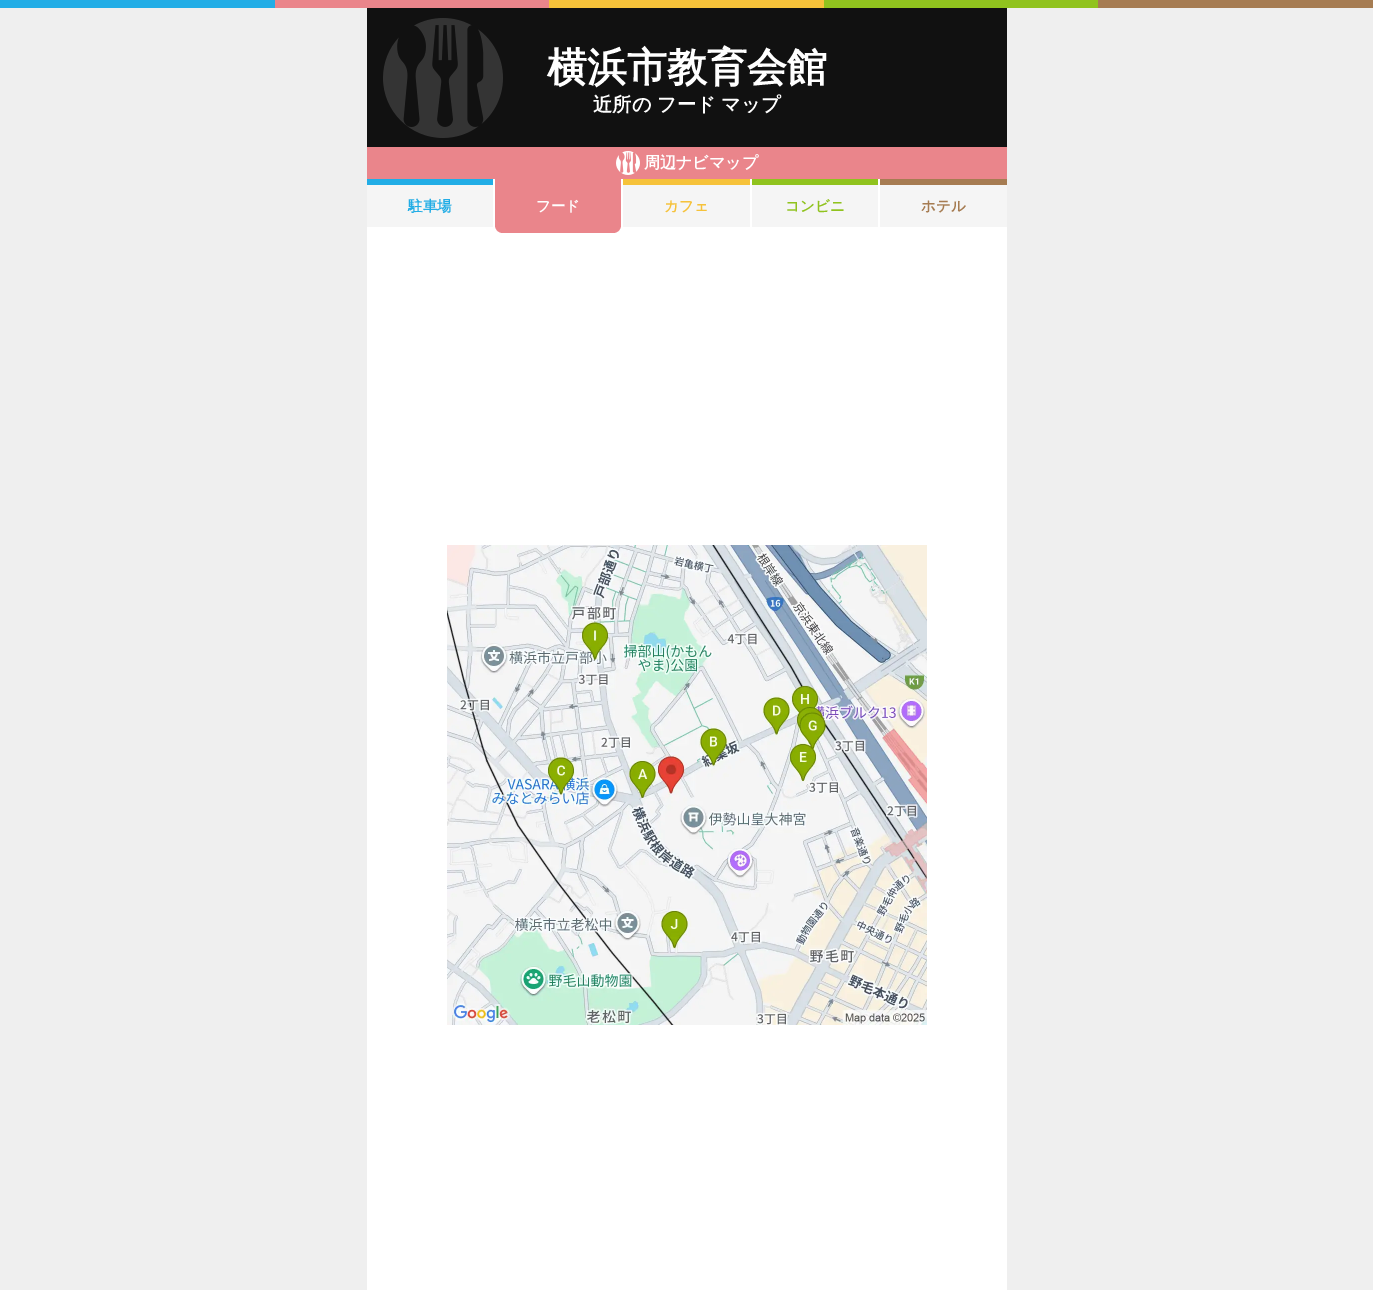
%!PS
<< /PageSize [1373 1290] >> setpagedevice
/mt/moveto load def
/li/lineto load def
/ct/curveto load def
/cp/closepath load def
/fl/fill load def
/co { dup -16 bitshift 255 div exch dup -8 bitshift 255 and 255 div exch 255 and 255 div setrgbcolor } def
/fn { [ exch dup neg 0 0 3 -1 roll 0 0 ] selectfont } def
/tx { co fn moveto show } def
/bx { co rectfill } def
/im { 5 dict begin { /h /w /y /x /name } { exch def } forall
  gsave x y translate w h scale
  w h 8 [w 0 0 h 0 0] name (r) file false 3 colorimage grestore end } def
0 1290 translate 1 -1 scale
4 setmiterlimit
0 0 1373 1290 16#EFEFEF bx
0 0 275 8 16#22ADE6 bx
275 0 274 8 16#EA858B bx
549 0 275 8 16#F6C23A bx
824 0 274 8 16#90C31E bx
1098 0 275 8 16#A67C52 bx
367 179 640 1111 16#FFFFFF bx
367 8 640 139 16#111111 bx
(media/1.raw) 383 18 120 120 im
367 147 640 32 16#EA858B bx
(media/2.raw) 616 151 24 24 im
367 185 126 42 16#F5F5F5 bx
367 179 126 6 16#22ADE6 bx
16#EA858B co
495 179 mt 621 179 li 621 225 li 621 229.5 617.5 233 613 233 ct 503 233 li 498.5 233 495 229.5 495 225 ct cp fl
623 185 127 42 16#F5F5F5 bx
623 179 127 6 16#F6C23A bx
752 185 126 42 16#F5F5F5 bx
752 179 126 6 16#90C31E bx
880 185 127 42 16#F5F5F5 bx
880 179 127 6 16#A67C52 bx
(media/3.raw) 447 545 480 480 im
(横浜市教育会館) 547 81 /WenQuanYiZenHei-Bold 40 16#FFFFFF tx
(近所の フード マップ) 593 111 /WenQuanYiZenHei-Bold 19.25 16#FFFFFF tx
(周辺ナビマップ) 644 168 /WenQuanYiZenHei-Bold 16 16#FFFFFF tx
(駐車場) 408 211 /WenQuanYiZenHei-Bold 14.5 16#22ADE6 tx
(フード) 536 211 /WenQuanYiZenHei-Bold 14.5 16#FFFFFF tx
(カフェ) 664 211 /WenQuanYiZenHei-Bold 14.5 16#F6C23A tx
(コンビニ) 785 211 /WenQuanYiZenHei-Bold 14.5 16#90C31E tx
(ホテル) 921 211 /WenQuanYiZenHei-Bold 14.5 16#A67C52 tx
showpage
